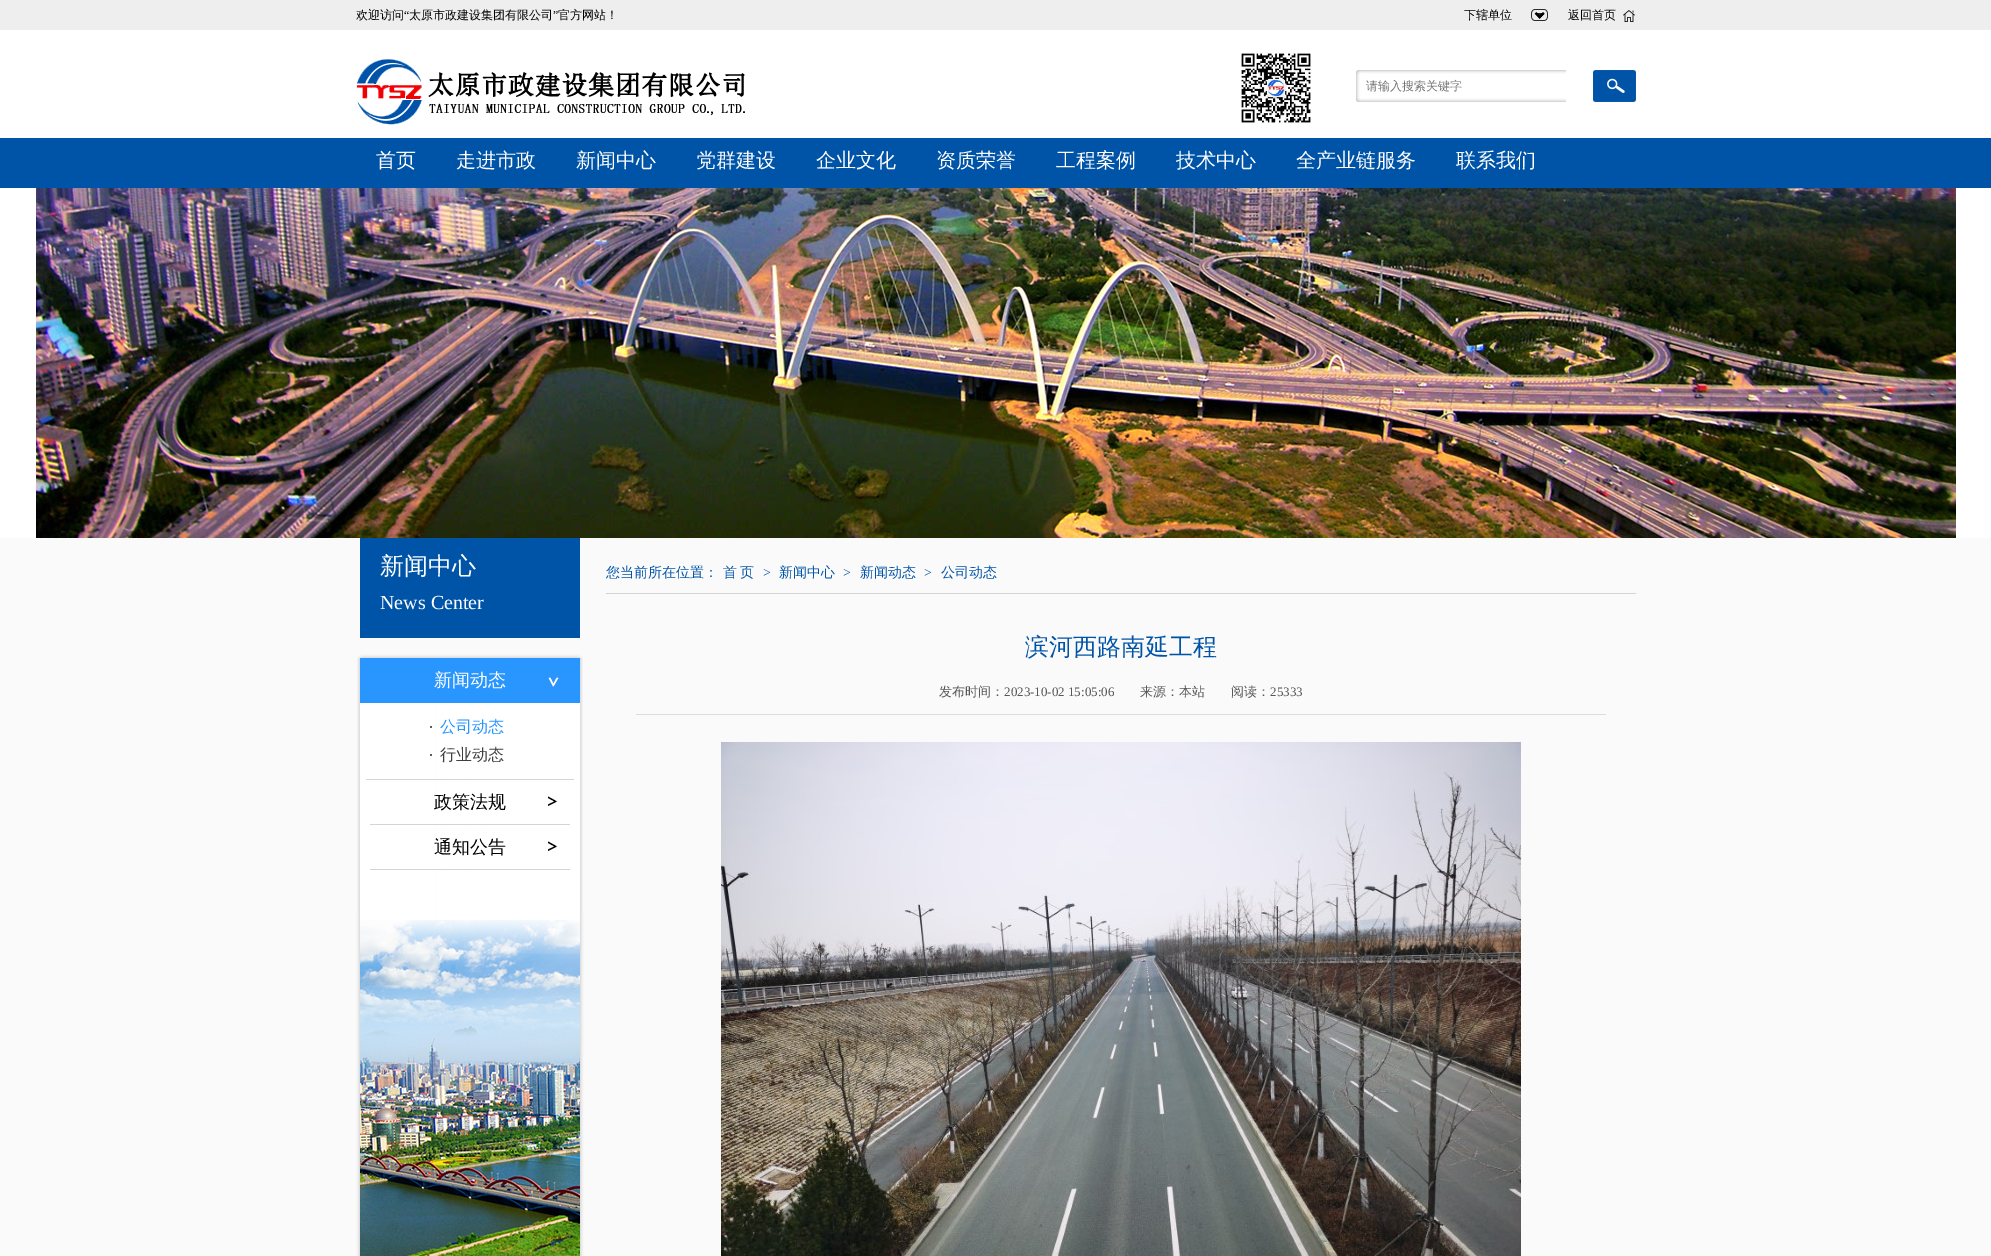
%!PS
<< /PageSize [1991 1256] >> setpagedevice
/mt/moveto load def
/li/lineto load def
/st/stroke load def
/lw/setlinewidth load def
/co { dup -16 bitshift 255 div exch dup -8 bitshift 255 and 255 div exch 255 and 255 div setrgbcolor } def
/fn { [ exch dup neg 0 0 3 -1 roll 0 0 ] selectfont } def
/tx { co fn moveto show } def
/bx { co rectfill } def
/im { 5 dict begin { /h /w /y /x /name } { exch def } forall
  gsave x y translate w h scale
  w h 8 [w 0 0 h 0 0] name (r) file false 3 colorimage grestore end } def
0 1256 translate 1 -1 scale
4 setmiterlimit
0 0 1991 1256 16#FFFFFF bx
0 0 1991 30 16#EEEEEE bx
(media/1.raw) 1531 9 17 12 im
16#000000 co
2 lw
1535.5 13 mt 1539.5 17 li 1543.5 13 li st
(media/2.raw) 1623 10 12 12 im
(media/3.raw) 356 59 389 66 im
(media/4.raw) 1240 52 71 71 im
(media/5.raw) 1356 70 210 32 im
(media/6.raw) 1593 70 43 32 im
0 138 1991 50 16#0054A7 bx
(media/7.raw) 36 188 1920 350 im
0 538 1991 718 16#FAFAFA bx
(media/8.raw) 356 914 228 342 im
360 538 220 100 16#0054A7 bx
(media/9.raw) 357 658 226 262 im
(media/10.raw) 357 653 226 5 im
(media/11.raw) 360 658 220 45 im
366 779 208 1 16#D5D5D5 bx
430 726 2 2 16#5C5C5C bx
430 754 2 2 16#5C5C5C bx
(media/12.raw) 370 796 200 29 im
(media/12.raw) 370 841 200 29 im
606 593 1030 1 16#D4D4D4 bx
636 714 970 1 16#DCDCDC bx
(media/13.raw) 721 742 800 514 im
(欢迎访问) 356 19 /WenQuanYiZenHei-Medium 12 16#000000 tx
(“) 404 19 /LiberationSerif-Regular 12 16#000000 tx
(太原市政建设集团有限公司) 409 19 /WenQuanYiZenHei-Medium 12 16#000000 tx
(”) 553 19 /LiberationSerif-Regular 12 16#000000 tx
(官方网站！) 558 19 /WenQuanYiZenHei-Medium 12 16#000000 tx
(下辖单位) 1464 19 /WenQuanYiZenHei-Medium 12 16#000000 tx
(返回首页) 1568 19 /WenQuanYiZenHei-Medium 12 16#000000 tx
(请输入搜索关键字) 1366 90 /WenQuanYiZenHei-Medium 12 16#757575 tx
(首页) 376 167 /WenQuanYiZenHei-Medium 20 16#FFFFFF tx
(走进市政) 456 167 /WenQuanYiZenHei-Medium 20 16#FFFFFF tx
(新闻中心) 576 167 /WenQuanYiZenHei-Medium 20 16#FFFFFF tx
(党群建设) 696 167 /WenQuanYiZenHei-Medium 20 16#FFFFFF tx
(企业文化) 816 167 /WenQuanYiZenHei-Medium 20 16#FFFFFF tx
(资质荣誉) 936 167 /WenQuanYiZenHei-Medium 20 16#FFFFFF tx
(工程案例) 1056 167 /WenQuanYiZenHei-Medium 20 16#FFFFFF tx
(技术中心) 1176 167 /WenQuanYiZenHei-Medium 20 16#FFFFFF tx
(全产业链服务) 1296 167 /WenQuanYiZenHei-Medium 20 16#FFFFFF tx
(联系我们) 1456 167 /WenQuanYiZenHei-Medium 20 16#FFFFFF tx
(新闻中心) 380 574 /WenQuanYiZenHei-Medium 24 16#FFFFFF tx
(News Center) 380 609 /LiberationSerif-Regular 20 16#FFFFFF tx
(新闻动态) 434 686 /WenQuanYiZenHei-Medium 18 16#FFFFFF tx
(公司动态) 440 732 /WenQuanYiZenHei-Medium 16 16#2996FF tx
(行业动态) 440 760 /WenQuanYiZenHei-Medium 16 16#3F3F3F tx
(政策法规) 434 808 /WenQuanYiZenHei-Medium 18 16#000000 tx
(通知公告) 434 853 /WenQuanYiZenHei-Medium 18 16#000000 tx
(您当前所在位置：) 606 577 /WenQuanYiZenHei-Medium 14 16#0054A7 tx
723 577 mt -1 0 32 (首 页) widthshow
(>) 763 577 /LiberationSerif-Regular 14 16#0054A7 tx
(新闻中心) 779 577 /WenQuanYiZenHei-Medium 14 16#0054A7 tx
(>) 843 577 /LiberationSerif-Regular 14 16#0054A7 tx
(新闻动态) 860 577 /WenQuanYiZenHei-Medium 14 16#0054A7 tx
(>) 924 577 /LiberationSerif-Regular 14 16#0054A7 tx
(公司动态) 941 577 /WenQuanYiZenHei-Medium 14 16#0054A7 tx
(滨河西路南延工程) 1025 655 /WenQuanYiZenHei-Medium 24 16#0054A7 tx
(发布时间：) 939 696 /WenQuanYiZenHei-Medium 13 16#575757 tx
(2023-10-02 15:05:06) 1004 696 /LiberationSerif-Regular 13 16#575757 tx
(来源：本站) 1140 696 /WenQuanYiZenHei-Medium 13 16#575757 tx
(阅读：) 1231 696 /WenQuanYiZenHei-Medium 13 16#575757 tx
(25333) 1270 696 /LiberationSerif-Regular 13 16#575757 tx
showpage
